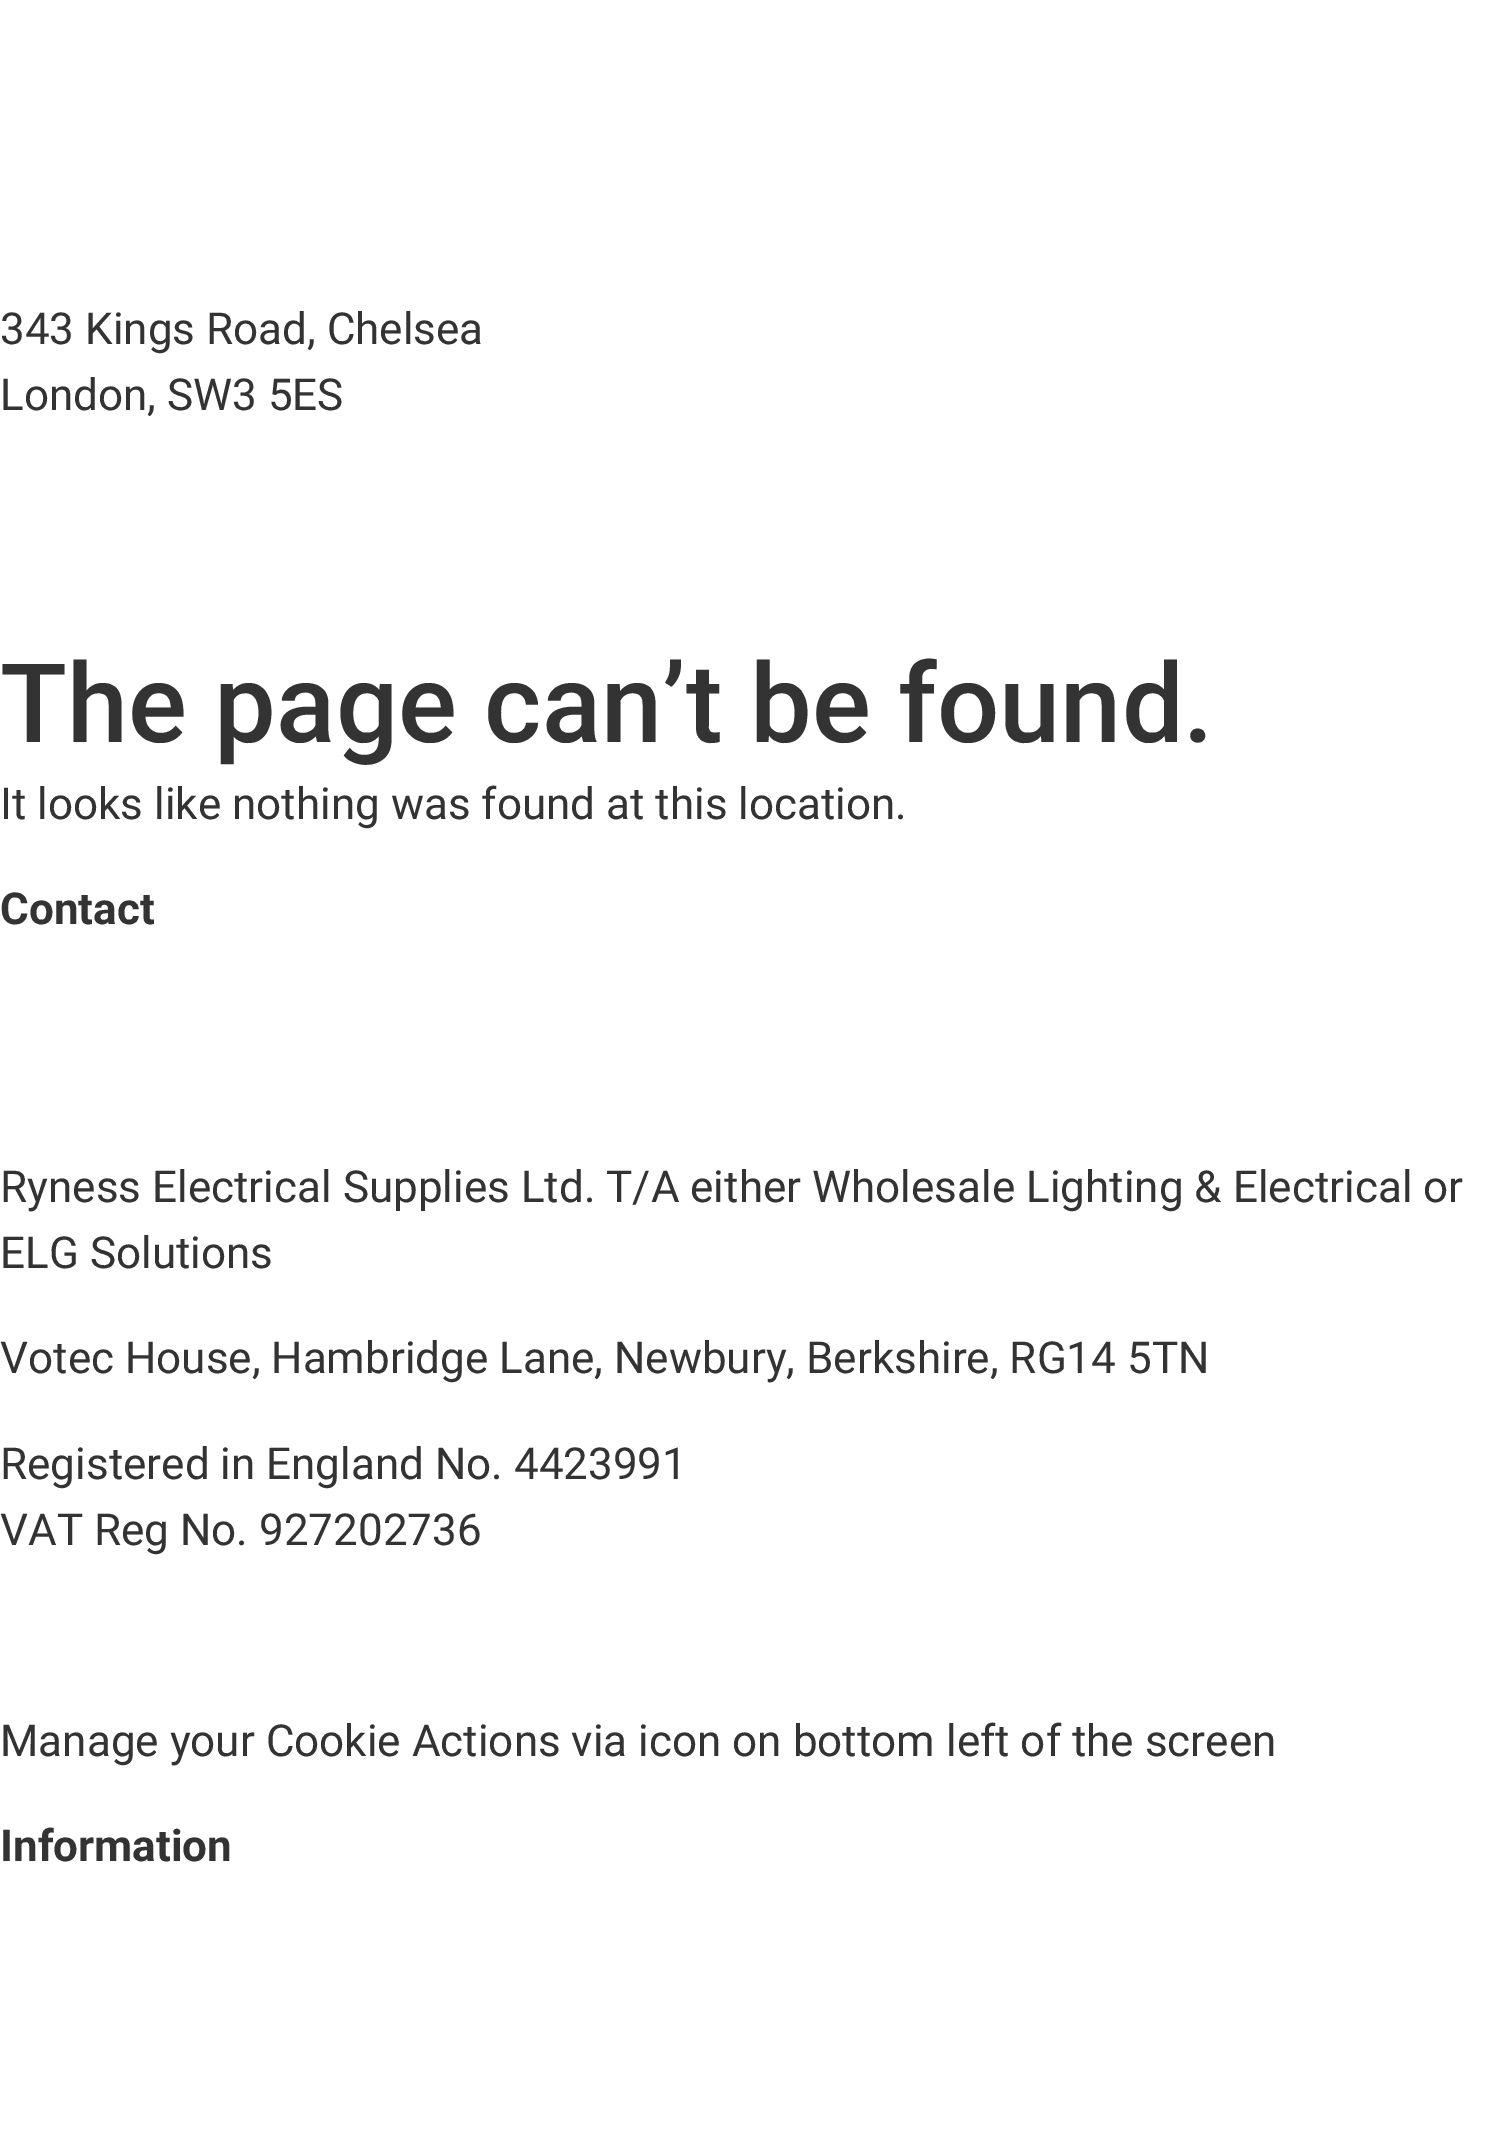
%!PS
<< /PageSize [1506 2143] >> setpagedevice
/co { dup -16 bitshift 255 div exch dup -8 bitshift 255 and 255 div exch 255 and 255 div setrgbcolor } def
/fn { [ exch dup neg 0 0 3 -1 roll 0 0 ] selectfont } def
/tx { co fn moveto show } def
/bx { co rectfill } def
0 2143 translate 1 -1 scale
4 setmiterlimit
0 0 1506 2143 16#FFFFFF bx
(343 Kings Road, Chelsea) 0 344 /Roboto-Regular 44 16#333333 tx
(London, SW3 5ES) 0 410 /Roboto-Regular 44 16#333333 tx
(The page can’t be found.) 0 742 /Roboto-Medium 110 16#333333 tx
(It looks like nothing was found at this location.) 0 819 /Roboto-Regular 44 16#333333 tx
(Contact) 0 924 /Roboto-Bold 44 16#333333 tx
(Ryness Electrical Supplies Ltd. T/A either Wholesale Lighting & Electrical or) 0 1202 /Roboto-Regular 44 16#333333 tx
(ELG Solutions) 0 1268 /Roboto-Regular 44 16#333333 tx
(Votec House, Hambridge Lane, Newbury, Berkshire, RG14 5TN) 0 1373 /Roboto-Regular 44 16#333333 tx
(Registered in England No. 4423991) 0 1479 /Roboto-Regular 44 16#333333 tx
(VAT Reg No. 927202736) 0 1545 /Roboto-Regular 44 16#333333 tx
(Manage your Cookie Actions via icon on bottom left of the screen) 0 1756 /Roboto-Regular 44 16#333333 tx
(Information) 0 1861 /Roboto-Bold 44 16#333333 tx
showpage
